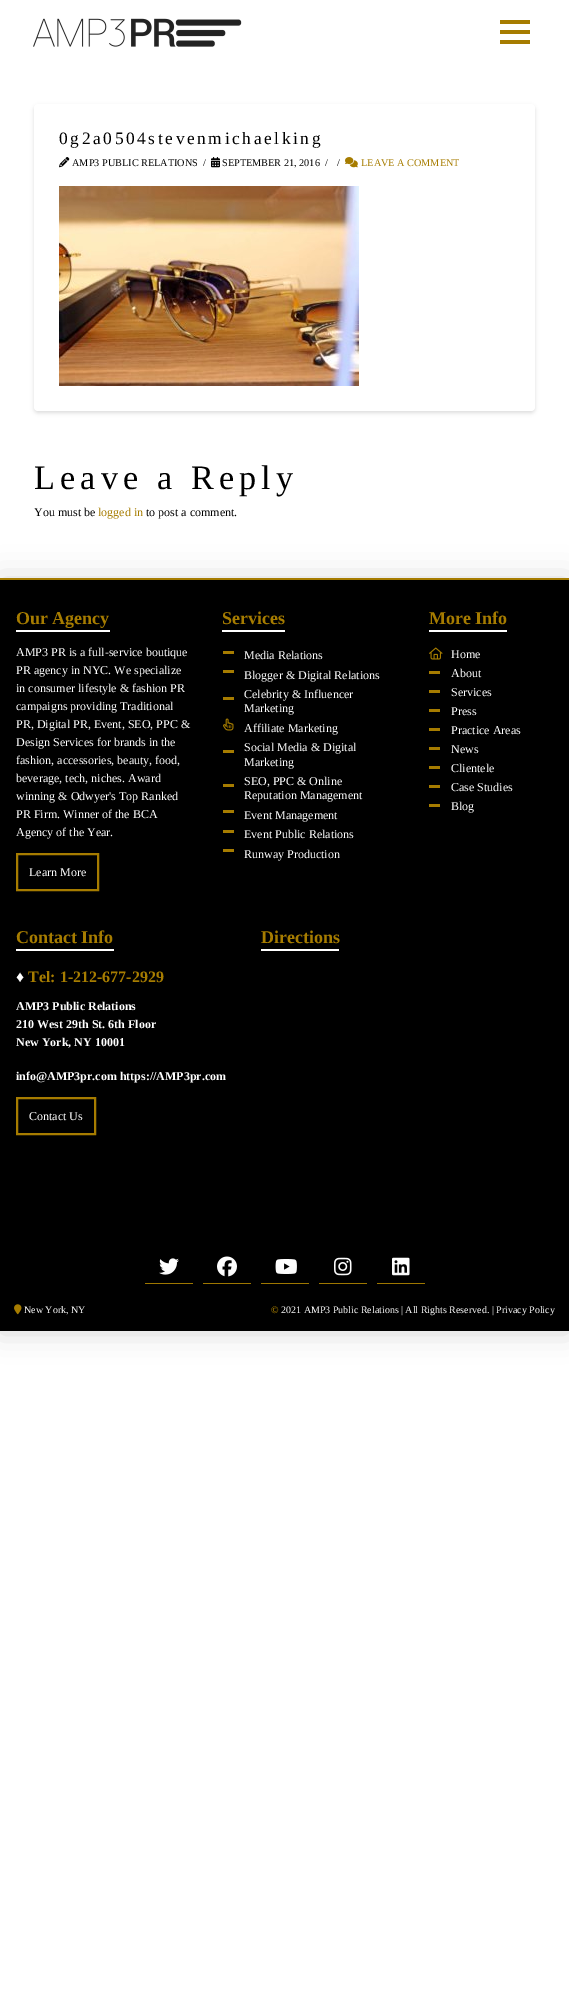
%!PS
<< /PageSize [569 2013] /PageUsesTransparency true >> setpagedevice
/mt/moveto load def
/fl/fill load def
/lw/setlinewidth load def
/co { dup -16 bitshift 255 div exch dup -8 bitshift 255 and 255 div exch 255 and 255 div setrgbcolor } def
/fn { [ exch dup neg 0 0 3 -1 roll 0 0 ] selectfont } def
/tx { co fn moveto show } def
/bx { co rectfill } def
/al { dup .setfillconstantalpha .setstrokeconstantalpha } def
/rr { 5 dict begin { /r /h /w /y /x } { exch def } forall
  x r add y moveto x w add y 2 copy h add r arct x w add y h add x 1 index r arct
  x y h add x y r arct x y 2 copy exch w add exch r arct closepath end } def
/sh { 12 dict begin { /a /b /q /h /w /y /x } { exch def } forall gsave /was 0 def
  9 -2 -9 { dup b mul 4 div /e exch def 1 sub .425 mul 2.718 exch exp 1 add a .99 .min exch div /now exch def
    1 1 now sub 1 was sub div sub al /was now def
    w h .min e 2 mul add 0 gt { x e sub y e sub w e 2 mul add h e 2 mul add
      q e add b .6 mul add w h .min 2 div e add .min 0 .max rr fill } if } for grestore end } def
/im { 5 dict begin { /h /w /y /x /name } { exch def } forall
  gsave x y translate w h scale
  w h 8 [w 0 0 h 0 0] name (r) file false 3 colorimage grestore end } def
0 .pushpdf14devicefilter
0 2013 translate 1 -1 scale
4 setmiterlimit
0 0 569 2013 16#FFFFFF bx
(media/1.raw) 33 18 209 29 im
500 20 30 4 16#A67C00 bx
500 30 30 4 16#A67C00 bx
500 40 30 4 16#A67C00 bx
16#000000 co
34 106 501 307 4 2 .13 sh
16#FFFFFF co
34 104 501 307 4 rr fl
(media/2.raw) 59 157 11 11 im
(media/3.raw) 211 157 9 11 im
(media/4.raw) 345 157 13 11 im
(media/5.raw) 59 186 300 200 im
16#000000 co
0 580 569 711 0 16 .15 sh
0 580 569 709 16#000000 bx
0 578 569 2 16#A67C00 bx
16 630 94 2 16#FFFFFF bx
16#A67C00 co
2 lw
17 854 81 36 rectstroke
222 630 63 2 16#FFFFFF bx
223 651 11 3 16#A67C00 bx
223 670 11 3 16#A67C00 bx
223 697 11 3 16#A67C00 bx
(media/6.raw) 223 718 11 13 im
223 750 11 3 16#A67C00 bx
223 784 11 3 16#A67C00 bx
223 810 11 3 16#A67C00 bx
223 830 11 3 16#A67C00 bx
223 849 11 3 16#A67C00 bx
429 630 78 2 16#FFFFFF bx
(media/7.raw) 429 647 14 13 im
429 671 11 3 16#A67C00 bx
429 690 11 3 16#A67C00 bx
429 709 11 3 16#A67C00 bx
429 728 11 3 16#A67C00 bx
429 747 11 3 16#A67C00 bx
429 766 11 3 16#A67C00 bx
429 785 11 3 16#A67C00 bx
429 804 11 3 16#A67C00 bx
16 949 98 2 16#FFFFFF bx
16#A67C00 co
17 1098 78 36 rectstroke
261 949 78 2 16#FFFFFF bx
145 1283 48 1 16#A67C00 bx
(media/8.raw) 159 1258 20 17 im
203 1283 48 1 16#A67C00 bx
(media/9.raw) 217 1256 20 21 im
261 1283 48 1 16#A67C00 bx
(media/10.raw) 275 1259 22 15 im
319 1283 48 1 16#A67C00 bx
(media/11.raw) 334 1257 18 19 im
377 1283 48 1 16#A67C00 bx
(media/12.raw) 392 1257 18 19 im
16#000000 co
0 1291 569 42 0 14 .15 sh
0 1289 569 42 16#000000 bx
(media/13.raw) 14 1304 8 11 im
/LiberationSerif-Regular 17.4 fn
59 144 mt 2.6 0 (0g2a0504stevenmichaelking) ashow
(AMP3 PUBLIC RELATIONS) 72 166 /LiberationSerif-Regular 10.25 16#000000 tx
(/) 203 166 /LiberationSerif-Regular 10.25 16#000000 tx
(SEPTEMBER 21, 2016) 222 166 /LiberationSerif-Regular 10.25 16#000000 tx
(/) 325 166 /LiberationSerif-Regular 10.25 16#000000 tx
(/) 337 166 /LiberationSerif-Regular 10.25 16#000000 tx
(LEAVE A COMMENT) 361 166 /LiberationSerif-Regular 10.25 16#A67C00 tx
/LiberationSerif-Regular 34.25 fn
16#000000 co
34 489 mt 5.1 0 (Leave a Reply) ashow
(You must be) 34 516 /LiberationSerif-Regular 12 16#000000 tx
(logged in) 98 516 /LiberationSerif-Regular 12 16#A67C00 tx
(to post a comment.) 146 516 /LiberationSerif-Regular 12 16#000000 tx
(Our Agency) 16 624 /LiberationSerif-Bold 18 16#A67C00 tx
(AMP3 PR is a full-service boutique) 16 656 /LiberationSerif-Regular 12 16#FFFFFF tx
(PR agency in NYC. We specialize) 16 674 /LiberationSerif-Regular 12 16#FFFFFF tx
(in consumer lifestyle & fashion PR) 16 692 /LiberationSerif-Regular 12 16#FFFFFF tx
(campaigns providing Traditional) 16 710 /LiberationSerif-Regular 12 16#FFFFFF tx
(PR, Digital PR, Event, SEO, PPC &) 16 728 /LiberationSerif-Regular 12 16#FFFFFF tx
(Design Services for brands in the) 16 746 /LiberationSerif-Regular 12 16#FFFFFF tx
(fashion, accessories, beauty, food,) 16 764 /LiberationSerif-Regular 12 16#FFFFFF tx
(beverage, tech, niches. Award) 16 782 /LiberationSerif-Regular 12 16#FFFFFF tx
(winning & Odwyer's Top Ranked) 16 800 /LiberationSerif-Regular 12 16#FFFFFF tx
(PR Firm. Winner of the BCA) 16 818 /LiberationSerif-Regular 12 16#FFFFFF tx
(Agency of the Year.) 16 836 /LiberationSerif-Regular 12 16#FFFFFF tx
(Learn More) 29 876 /LiberationSerif-Regular 12 16#FFFFFF tx
(Services) 222 624 /LiberationSerif-Bold 18 16#A67C00 tx
(Media Relations) 244 659 /LiberationSerif-Regular 12 16#FFFFFF tx
(Blogger & Digital Relations) 244 679 /LiberationSerif-Regular 12 16#FFFFFF tx
(Celebrity & Influencer) 244 698 /LiberationSerif-Regular 12 16#FFFFFF tx
(Marketing) 244 712 /LiberationSerif-Regular 12 16#FFFFFF tx
(Affiliate Marketing) 244 732 /LiberationSerif-Regular 12 16#FFFFFF tx
(Social Media & Digital) 244 751 /LiberationSerif-Regular 12 16#FFFFFF tx
(Marketing) 244 766 /LiberationSerif-Regular 12 16#FFFFFF tx
(SEO, PPC & Online) 244 785 /LiberationSerif-Regular 12 16#FFFFFF tx
(Reputation Management) 244 799 /LiberationSerif-Regular 12 16#FFFFFF tx
(Event Management) 244 819 /LiberationSerif-Regular 12 16#FFFFFF tx
(Event Public Relations) 244 838 /LiberationSerif-Regular 12 16#FFFFFF tx
(Runway Production) 244 858 /LiberationSerif-Regular 12 16#FFFFFF tx
(More Info) 429 624 /LiberationSerif-Bold 18 16#A67C00 tx
(Home) 451 658 /LiberationSerif-Regular 12 16#FFFFFF tx
(About) 451 677 /LiberationSerif-Regular 12 16#FFFFFF tx
(Services) 451 696 /LiberationSerif-Regular 12 16#FFFFFF tx
(Press) 451 715 /LiberationSerif-Regular 12 16#FFFFFF tx
(Practice Areas) 451 734 /LiberationSerif-Regular 12 16#FFFFFF tx
(News) 451 753 /LiberationSerif-Regular 12 16#FFFFFF tx
(Clientele) 451 772 /LiberationSerif-Regular 12 16#FFFFFF tx
(Case Studies) 451 791 /LiberationSerif-Regular 12 16#FFFFFF tx
(Blog) 451 810 /LiberationSerif-Regular 12 16#FFFFFF tx
(Contact Info) 16 943 /LiberationSerif-Bold 18 16#A67C00 tx
(♦) 16 982 /LiberationSerif-Bold 16 16#FFFFFF tx
(Tel: 1-212-677-2929) 28 982 /LiberationSerif-Bold 16 16#A67C00 tx
(AMP3 Public Relations) 16 1010 /LiberationSerif-Bold 12 16#FFFFFF tx
(210 West 29th St. 6th Floor) 16 1028 /LiberationSerif-Bold 12 16#FFFFFF tx
(New York, NY 10001) 16 1046 /LiberationSerif-Bold 12 16#FFFFFF tx
(info@AMP3pr.com https://AMP3pr.com) 16 1080 /LiberationSerif-Bold 12 16#FFFFFF tx
(Contact Us) 29 1120 /LiberationSerif-Regular 12 16#FFFFFF tx
(Directions) 261 943 /LiberationSerif-Bold 18 16#A67C00 tx
(New York, NY) 24 1313 /LiberationSerif-Regular 10 16#FFFFFF tx
(©) 271 1313 /LiberationSerif-Bold 10 16#A67C00 tx
(2021 AMP3 Public Relations | All Rights Reserved. | Privacy Policy) 281 1313 /LiberationSerif-Regular 10 16#FFFFFF tx
.poppdf14devicefilter showpage
